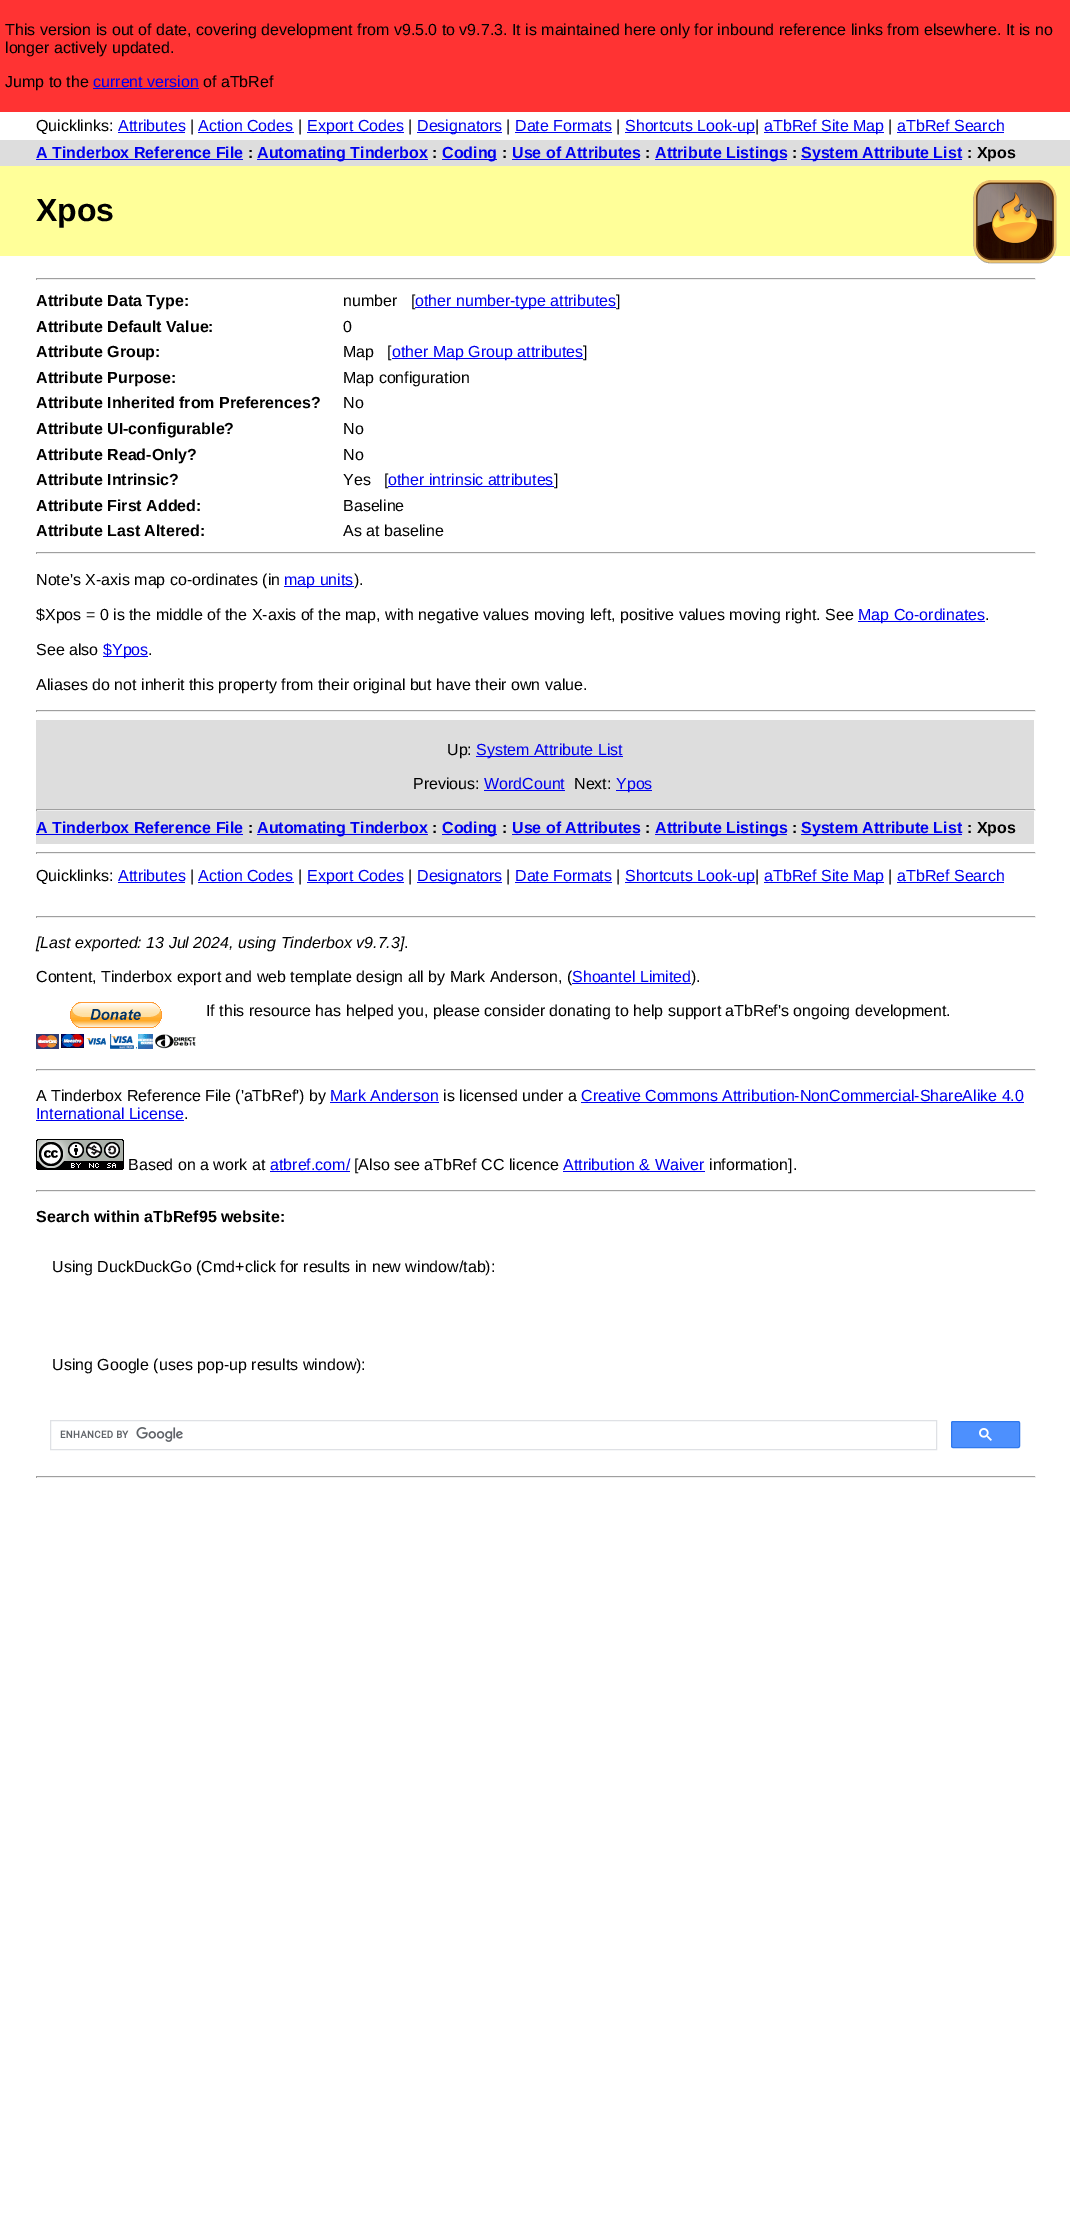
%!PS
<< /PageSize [1070 2234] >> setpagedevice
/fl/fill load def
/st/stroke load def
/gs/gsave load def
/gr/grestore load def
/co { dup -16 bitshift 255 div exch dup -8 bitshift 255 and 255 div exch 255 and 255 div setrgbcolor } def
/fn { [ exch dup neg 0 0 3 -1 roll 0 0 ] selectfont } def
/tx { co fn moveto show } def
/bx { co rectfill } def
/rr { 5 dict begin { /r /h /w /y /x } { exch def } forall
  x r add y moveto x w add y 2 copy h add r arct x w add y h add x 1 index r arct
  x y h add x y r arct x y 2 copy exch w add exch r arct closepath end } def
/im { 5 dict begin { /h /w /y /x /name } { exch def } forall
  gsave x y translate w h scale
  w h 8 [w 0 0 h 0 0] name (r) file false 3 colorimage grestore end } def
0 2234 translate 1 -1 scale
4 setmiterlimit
0 0 1070 2234 16#FFFFFF bx
0 0 1070 112 16#FF3333 bx
93 88 106 1 16#0000EE bx
118 132 67 1 16#0000EE bx
198 132 96 1 16#0000EE bx
307 132 97 1 16#0000EE bx
417 132 85 1 16#0000EE bx
515 132 97 1 16#0000EE bx
625 132 130 1 16#0000EE bx
764 132 120 1 16#0000EE bx
897 132 107 1 16#0000EE bx
0 140 1070 26 16#DDDDDD bx
36 159 207 1 16#0000EE bx
257 159 171 1 16#0000EE bx
442 159 55 1 16#0000EE bx
512 159 128 1 16#0000EE bx
655 159 132 1 16#0000EE bx
801 159 161 1 16#0000EE bx
0 166 1070 90 16#FFFF99 bx
(media/1.raw) 973 180 84 84 im
36 278 1000 1 16#9F9F9F bx
1035 278 1 2 16#EEEEEE bx
36 279 1000 1 16#EEEEEE bx
36 278 1 2 16#9F9F9F bx
415 307 201 1 16#0000EE bx
392 358 191 1 16#0000EE bx
388 486 166 1 16#0000EE bx
36 552 1000 1 16#9F9F9F bx
1035 552 1 2 16#EEEEEE bx
36 553 1000 1 16#EEEEEE bx
36 552 1 2 16#9F9F9F bx
284 586 70 1 16#0000EE bx
858 621 127 1 16#0000EE bx
103 656 45 1 16#0000EE bx
36 710 1000 1 16#9F9F9F bx
1035 710 1 2 16#EEEEEE bx
36 711 1000 1 16#EEEEEE bx
36 710 1 2 16#9F9F9F bx
36 720 998 124 16#DDDDDD bx
476 756 147 1 16#0000EE bx
484 790 81 1 16#0000EE bx
616 790 36 1 16#0000EE bx
36 809 1000 1 16#9F9F9F bx
1035 809 1 2 16#EEEEEE bx
36 810 1000 1 16#EEEEEE bx
36 809 1 2 16#9F9F9F bx
36 834 207 1 16#0000EE bx
257 834 171 1 16#0000EE bx
442 834 55 1 16#0000EE bx
512 834 128 1 16#0000EE bx
655 834 132 1 16#0000EE bx
801 834 161 1 16#0000EE bx
36 852 1000 1 16#9F9F9F bx
1035 852 1 2 16#EEEEEE bx
36 853 1000 1 16#EEEEEE bx
36 852 1 2 16#9F9F9F bx
118 882 67 1 16#0000EE bx
198 882 96 1 16#0000EE bx
307 882 97 1 16#0000EE bx
417 882 85 1 16#0000EE bx
515 882 97 1 16#0000EE bx
625 882 130 1 16#0000EE bx
764 882 120 1 16#0000EE bx
897 882 107 1 16#0000EE bx
36 916 1000 1 16#9F9F9F bx
1035 916 1 2 16#EEEEEE bx
36 917 1000 1 16#EEEEEE bx
36 916 1 2 16#9F9F9F bx
(media/2.raw) 36 1002 160 47 im
36 1069 1000 1 16#9F9F9F bx
1035 1069 1 2 16#EEEEEE bx
36 1070 1000 1 16#EEEEEE bx
36 1069 1 2 16#9F9F9F bx
330 1102 109 1 16#0000EE bx
581 1102 443 1 16#0000EE bx
36 1120 148 1 16#0000EE bx
(media/3.raw) 36 1139 88 31 im
270 1171 80 1 16#0000EE bx
563 1171 142 1 16#0000EE bx
36 1190 1000 1 16#9F9F9F bx
1035 1190 1 2 16#EEEEEE bx
36 1191 1000 1 16#EEEEEE bx
36 1190 1 2 16#9F9F9F bx
16#DFE1E5 co
50.5 1420.5 886 29 rectstroke
(media/4.raw) 60 1427 123 15 im
16#4D90FE co
951.5 1421.5 68 26 1.5 rr gs fl gr
16#3079ED co
st
(media/5.raw) 979 1428 13 13 im
36 1476 1000 1 16#9F9F9F bx
1035 1476 1 2 16#EEEEEE bx
36 1477 1000 1 16#EEEEEE bx
36 1476 1 2 16#9F9F9F bx
(This version is out of date, covering development from v9.5.0 to v9.7.3. It is maintained here only for inbound reference links from elsewhere. It is no) 5 35 /LiberationSans-Regular 16 16#000000 tx
(longer actively updated.) 5 53 /LiberationSans-Regular 16 16#000000 tx
(Jump to the) 5 87 /LiberationSans-Regular 16 16#000000 tx
(current version) 93 87 /LiberationSans-Regular 16 16#0000EE tx
(of aTbRef) 203 87 /LiberationSans-Regular 16 16#000000 tx
(Quicklinks:) 36 131 /LiberationSans-Regular 16 16#000000 tx
(Attributes) 118 131 /LiberationSans-Regular 16 16#0000EE tx
(|) 190 131 /LiberationSans-Regular 16 16#000000 tx
(Action Codes) 198 131 /LiberationSans-Regular 16 16#0000EE tx
(|) 298 131 /LiberationSans-Regular 16 16#000000 tx
(Export Codes) 307 131 /LiberationSans-Regular 16 16#0000EE tx
(|) 408 131 /LiberationSans-Regular 16 16#000000 tx
(Designators) 417 131 /LiberationSans-Regular 16 16#0000EE tx
(|) 506 131 /LiberationSans-Regular 16 16#000000 tx
(Date Formats) 515 131 /LiberationSans-Regular 16 16#0000EE tx
(|) 616 131 /LiberationSans-Regular 16 16#000000 tx
(Shortcuts Look-up) 625 131 /LiberationSans-Regular 16 16#0000EE tx
(|) 755 131 /LiberationSans-Regular 16 16#000000 tx
(aTbRef Site Map) 764 131 /LiberationSans-Regular 16 16#0000EE tx
(|) 888 131 /LiberationSans-Regular 16 16#000000 tx
(aTbRef Search) 897 131 /LiberationSans-Regular 16 16#0000EE tx
(A Tinderbox Reference File) 36 158 /LiberationSans-Bold 16 16#0000EE tx
(:) 248 158 /LiberationSans-Bold 16 16#000000 tx
(Automating Tinderbox) 257 158 /LiberationSans-Bold 16 16#0000EE tx
(:) 432 158 /LiberationSans-Bold 16 16#000000 tx
(Coding) 442 158 /LiberationSans-Bold 16 16#0000EE tx
(:) 502 158 /LiberationSans-Bold 16 16#000000 tx
(Use of Attributes) 512 158 /LiberationSans-Bold 16 16#0000EE tx
(:) 645 158 /LiberationSans-Bold 16 16#000000 tx
(Attribute Listings) 655 158 /LiberationSans-Bold 16 16#0000EE tx
(:) 792 158 /LiberationSans-Bold 16 16#000000 tx
(System Attribute List) 801 158 /LiberationSans-Bold 16 16#0000EE tx
(: Xpos) 967 158 /LiberationSans-Bold 16 16#000000 tx
(Xpos) 36 221 /LiberationSans-Bold 32 16#000000 tx
(Attribute Data Type:) 36 306 /LiberationSans-Bold 16 16#000000 tx
(Attribute Default Value:) 36 332 /LiberationSans-Bold 16 16#000000 tx
(Attribute Group:) 36 357 /LiberationSans-Bold 16 16#000000 tx
(Attribute Purpose:) 36 383 /LiberationSans-Bold 16 16#000000 tx
(Attribute Inherited from Preferences?) 36 408 /LiberationSans-Bold 16 16#000000 tx
(Attribute UI-configurable?) 36 434 /LiberationSans-Bold 16 16#000000 tx
(Attribute Read-Only?) 36 460 /LiberationSans-Bold 16 16#000000 tx
(Attribute Intrinsic?) 36 485 /LiberationSans-Bold 16 16#000000 tx
(Attribute First Added:) 36 511 /LiberationSans-Bold 16 16#000000 tx
(Attribute Last Altered:) 36 536 /LiberationSans-Bold 16 16#000000 tx
(number   [) 343 306 /LiberationSans-Regular 16 16#000000 tx
(other number-type attributes) 415 306 /LiberationSans-Regular 16 16#0000EE tx
(]) 616 306 /LiberationSans-Regular 16 16#000000 tx
(0) 343 332 /LiberationSans-Regular 16 16#000000 tx
(Map   [) 343 357 /LiberationSans-Regular 16 16#000000 tx
(other Map Group attributes) 392 357 /LiberationSans-Regular 16 16#0000EE tx
(]) 583 357 /LiberationSans-Regular 16 16#000000 tx
(Map configuration) 343 383 /LiberationSans-Regular 16 16#000000 tx
(No) 343 408 /LiberationSans-Regular 16 16#000000 tx
(No) 343 434 /LiberationSans-Regular 16 16#000000 tx
(No) 343 460 /LiberationSans-Regular 16 16#000000 tx
(Yes   [) 343 485 /LiberationSans-Regular 16 16#000000 tx
(other intrinsic attributes) 388 485 /LiberationSans-Regular 16 16#0000EE tx
(]) 554 485 /LiberationSans-Regular 16 16#000000 tx
(Baseline) 343 511 /LiberationSans-Regular 16 16#000000 tx
(As at baseline) 343 536 /LiberationSans-Regular 16 16#000000 tx
(Note's X-axis map co-ordinates \(in) 36 585 /LiberationSans-Regular 16 16#000000 tx
(map units) 284 585 /LiberationSans-Regular 16 16#0000EE tx
(\).) 354 585 /LiberationSans-Regular 16 16#000000 tx
($Xpos = 0 is the middle of the X-axis of the map, with negative values moving left, positive values moving right. See) 36 620 /LiberationSans-Regular 16 16#000000 tx
(Map Co-ordinates) 858 620 /LiberationSans-Regular 16 16#0000EE tx
(.) 985 620 /LiberationSans-Regular 16 16#000000 tx
(See also) 36 655 /LiberationSans-Regular 16 16#000000 tx
($Ypos) 103 655 /LiberationSans-Regular 16 16#0000EE tx
(.) 148 655 /LiberationSans-Regular 16 16#000000 tx
(Aliases do not inherit this property from their original but have their own value.) 36 690 /LiberationSans-Regular 16 16#000000 tx
(Up:) 447 755 /LiberationSans-Regular 16 16#000000 tx
(System Attribute List) 476 755 /LiberationSans-Regular 16 16#0000EE tx
(Previous:) 413 789 /LiberationSans-Regular 16 16#000000 tx
(WordCount) 484 789 /LiberationSans-Regular 16 16#0000EE tx
(Next:) 574 789 /LiberationSans-Regular 16 16#000000 tx
(Ypos) 616 789 /LiberationSans-Regular 16 16#0000EE tx
(A Tinderbox Reference File) 36 833 /LiberationSans-Bold 16 16#0000EE tx
(:) 248 833 /LiberationSans-Bold 16 16#000000 tx
(Automating Tinderbox) 257 833 /LiberationSans-Bold 16 16#0000EE tx
(:) 432 833 /LiberationSans-Bold 16 16#000000 tx
(Coding) 442 833 /LiberationSans-Bold 16 16#0000EE tx
(:) 502 833 /LiberationSans-Bold 16 16#000000 tx
(Use of Attributes) 512 833 /LiberationSans-Bold 16 16#0000EE tx
(:) 645 833 /LiberationSans-Bold 16 16#000000 tx
(Attribute Listings) 655 833 /LiberationSans-Bold 16 16#0000EE tx
(:) 792 833 /LiberationSans-Bold 16 16#000000 tx
(System Attribute List) 801 833 /LiberationSans-Bold 16 16#0000EE tx
(: Xpos) 967 833 /LiberationSans-Bold 16 16#000000 tx
(Quicklinks:) 36 881 /LiberationSans-Regular 16 16#000000 tx
(Attributes) 118 881 /LiberationSans-Regular 16 16#0000EE tx
(|) 190 881 /LiberationSans-Regular 16 16#000000 tx
(Action Codes) 198 881 /LiberationSans-Regular 16 16#0000EE tx
(|) 298 881 /LiberationSans-Regular 16 16#000000 tx
(Export Codes) 307 881 /LiberationSans-Regular 16 16#0000EE tx
(|) 408 881 /LiberationSans-Regular 16 16#000000 tx
(Designators) 417 881 /LiberationSans-Regular 16 16#0000EE tx
(|) 506 881 /LiberationSans-Regular 16 16#000000 tx
(Date Formats) 515 881 /LiberationSans-Regular 16 16#0000EE tx
(|) 616 881 /LiberationSans-Regular 16 16#000000 tx
(Shortcuts Look-up) 625 881 /LiberationSans-Regular 16 16#0000EE tx
(|) 755 881 /LiberationSans-Regular 16 16#000000 tx
(aTbRef Site Map) 764 881 /LiberationSans-Regular 16 16#0000EE tx
(|) 888 881 /LiberationSans-Regular 16 16#000000 tx
(aTbRef Search) 897 881 /LiberationSans-Regular 16 16#0000EE tx
([Last exported: 13 Jul 2024, using Tinderbox v9.7.3]) 36 948 /LiberationSans-Italic 16 16#000000 tx
(.) 404 948 /LiberationSans-Regular 16 16#000000 tx
(Content, Tinderbox export and web template design all by Mark Anderson, \() 36 982 /LiberationSans-Regular 16 16#000000 tx
(Shoantel Limited) 572 982 /LiberationSans-Regular 16 16#0000EE tx
572 983 119 1 16#0000EE bx
(\).) 691 982 /LiberationSans-Regular 16 16#000000 tx
(If this resource has helped you, please consider donating to help support aTbRef's ongoing development.) 206 1016 /LiberationSans-Regular 16 16#000000 tx
(A Tinderbox Reference File \('aTbRef'\) by) 36 1101 /LiberationSans-Regular 16 16#000000 tx
(Mark Anderson) 330 1101 /LiberationSans-Regular 16 16#0000EE tx
(is licensed under a) 443 1101 /LiberationSans-Regular 16 16#000000 tx
(Creative Commons Attribution-NonCommercial-ShareAlike 4.0) 581 1101 /LiberationSans-Regular 16 16#0000EE tx
(International License) 36 1119 /LiberationSans-Regular 16 16#0000EE tx
(.) 184 1119 /LiberationSans-Regular 16 16#000000 tx
(Based on a work at) 128 1170 /LiberationSans-Regular 16 16#000000 tx
(atbref.com/) 270 1170 /LiberationSans-Regular 16 16#0000EE tx
([Also see aTbRef CC licence) 354 1170 /LiberationSans-Regular 16 16#000000 tx
(Attribution & Waiver) 563 1170 /LiberationSans-Regular 16 16#0000EE tx
(information].) 709 1170 /LiberationSans-Regular 16 16#000000 tx
(Search within aTbRef95 website:) 36 1222 /LiberationSans-Bold 16 16#000000 tx
(Using DuckDuckGo \(Cmd+click for results in new window/tab\):) 52 1272 /LiberationSans-Regular 16 16#000000 tx
(Using Google \(uses pop-up results window\):) 52 1370 /LiberationSans-Regular 16 16#000000 tx
showpage
